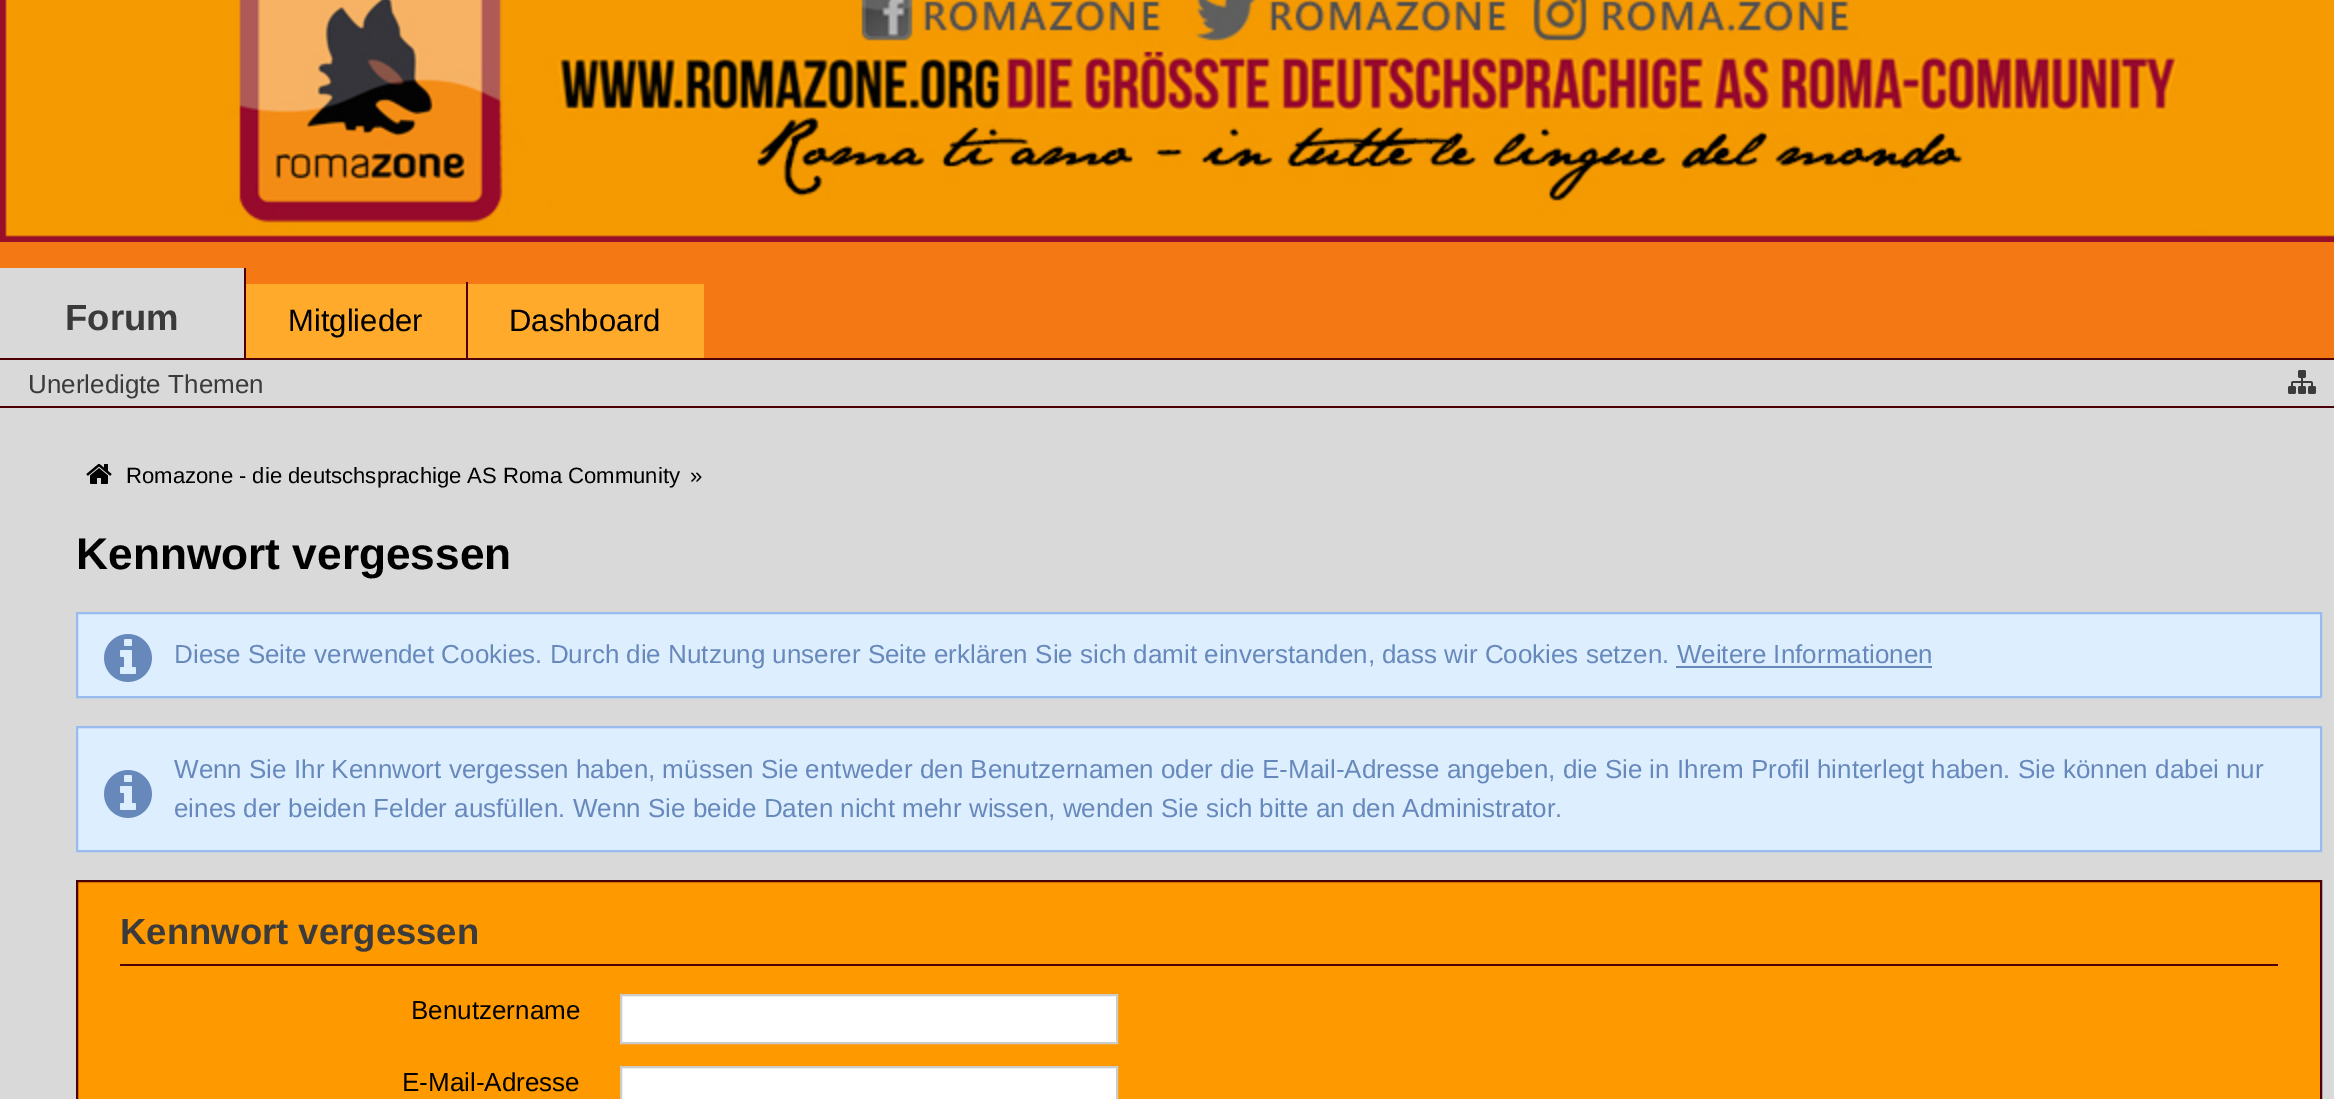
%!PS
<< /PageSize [2334 1099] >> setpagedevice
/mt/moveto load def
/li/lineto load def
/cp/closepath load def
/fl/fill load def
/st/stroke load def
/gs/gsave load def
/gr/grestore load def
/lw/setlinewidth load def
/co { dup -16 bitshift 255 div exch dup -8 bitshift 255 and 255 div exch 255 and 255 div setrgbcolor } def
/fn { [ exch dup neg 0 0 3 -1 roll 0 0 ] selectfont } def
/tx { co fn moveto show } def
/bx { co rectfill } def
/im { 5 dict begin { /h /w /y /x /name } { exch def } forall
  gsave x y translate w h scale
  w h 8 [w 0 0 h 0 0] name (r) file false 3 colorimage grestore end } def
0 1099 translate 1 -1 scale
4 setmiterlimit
0 0 2334 1099 16#F47814 bx
(media/1.raw) 0 0 2334 242 im
246 284 458 74 16#FFAA2B bx
0 268 244 90 16#D9D9D9 bx
244 268 2 90 16#4C0006 bx
466 282 2 76 16#4C0006 bx
0 360 2334 46 16#D9D9D9 bx
0 358 2334 2 16#4C0006 bx
0 406 2334 2 16#4C0006 bx
(media/2.raw) 2288 370 28 24 im
0 408 2334 691 16#D9D9D9 bx
(media/3.raw) 86 464 26 20 im
16#DDEEFF co
77 613 mt 2321 613 li 2321 697 li 77 697 li cp gs fl gr
16#99BBEE co
2 lw
st
(media/4.raw) 104 634 48 48 im
1676 666 256 2 16#6688BB bx
16#DDEEFF co
77 727 mt 2321 727 li 2321 851 li 77 851 li cp gs fl gr
16#99BBEE co
st
(media/4.raw) 104 770 48 48 im
16#FF9900 co
77 881 mt 2321 881 li 2321 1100 li 77 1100 li cp gs fl gr
16#4C0006 co
st
120 964 2158 2 16#4C0006 bx
16#FFFFFF co
621 995 mt 1117 995 li 1117 1043 li 621 1043 li cp gs fl gr
16#CCCCCC co
st
16#FFFFFF co
621 1067 mt 1117 1067 li 1117 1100 li 621 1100 li cp gs fl gr
16#CCCCCC co
st
(Forum) 65 330 /LiberationSans-Bold 36.5 16#3B3B3B tx
(Mitglieder) 288 331 /LiberationSans-Regular 31 16#000000 tx
(Dashboard) 509 331 /LiberationSans-Regular 31 16#000000 tx
(Unerledigte Themen) 28 393 /LiberationSans-Regular 26 16#3B3B3B tx
(Romazone - die deutschsprachige AS Roma Community) 126 483 /LiberationSans-Regular 22.1 16#000000 tx
(») 690 483 /LiberationSans-Regular 22.1 16#000000 tx
(Kennwort vergessen) 76 569 /LiberationSans-Bold 44.25 16#000000 tx
(Diese Seite verwendet Cookies. Durch die Nutzung unserer Seite erklären Sie sich damit einverstanden, dass wir Cookies setzen. Weitere Informationen) 174 663 /LiberationSans-Regular 26 16#6688BB tx
(Wenn Sie Ihr Kennwort vergessen haben, müssen Sie entweder den Benutzernamen oder die E-Mail-Adresse angeben, die Sie in Ihrem Profil hinterlegt haben. Sie können dabei nur) 174 778 /LiberationSans-Regular 26 16#6688BB tx
(eines der beiden Felder ausfüllen. Wenn Sie beide Daten nicht mehr wissen, wenden Sie sich bitte an den Administrator.) 174 817 /LiberationSans-Regular 26 16#6688BB tx
(Kennwort vergessen) 120 944 /LiberationSans-Bold 36.5 16#3B3B3B tx
(Benutzername) 411 1019 /LiberationSans-Regular 26 16#000000 tx
(E-Mail-Adresse) 402 1091 /LiberationSans-Regular 26 16#000000 tx
showpage
